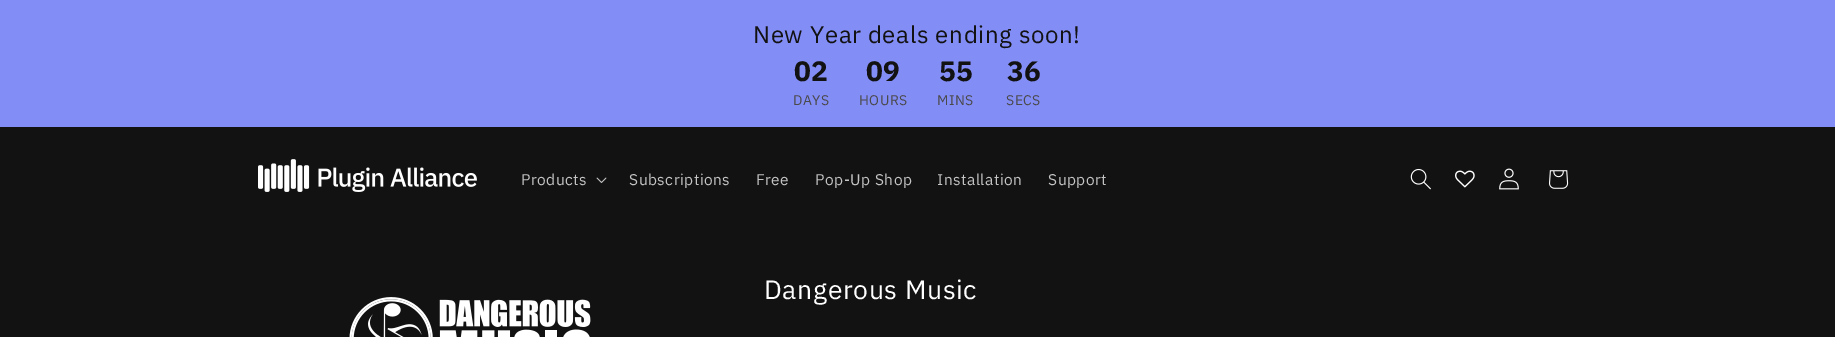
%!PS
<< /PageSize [1835 337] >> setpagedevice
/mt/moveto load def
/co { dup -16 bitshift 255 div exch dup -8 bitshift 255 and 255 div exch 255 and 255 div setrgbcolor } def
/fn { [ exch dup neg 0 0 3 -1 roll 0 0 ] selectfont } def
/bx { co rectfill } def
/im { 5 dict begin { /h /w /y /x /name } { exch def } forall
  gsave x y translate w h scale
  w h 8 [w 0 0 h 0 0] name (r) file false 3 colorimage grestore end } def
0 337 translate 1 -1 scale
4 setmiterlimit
0 0 1835 337 16#121212 bx
0 0 1835 127 16#838DF6 bx
(media/1.raw) 258 159 219 33 im
(media/2.raw) 596 177 11 6 im
(media/3.raw) 1410 168 21 22 im
(media/4.raw) 1455 170 20 18 im
(media/5.raw) 1499 168 20 22 im
(media/6.raw) 1549 170 20 19 im
(media/7.raw) 349 297 242 40 im
/IBMPlexSans-Regular 24 fn
16#121212 co
753 43 mt .65 0 (New Year deals ending soon!) ashow
/IBMPlexSans-Bold 28 fn
794 81 mt .5 0 (02) ashow
/IBMPlexSans-Regular 14 fn
16#4A4A4A co
793 105 mt .5 0 (DAYS) ashow
/IBMPlexSans-Bold 28 fn
16#121212 co
866 81 mt .5 0 (09) ashow
/IBMPlexSans-Regular 14 fn
16#4A4A4A co
859 105 mt .5 0 (HOURS) ashow
/IBMPlexSans-Bold 28 fn
16#121212 co
939 81 mt .5 0 (55) ashow
/IBMPlexSans-Regular 14 fn
16#4A4A4A co
937 105 mt .5 0 (MINS) ashow
/IBMPlexSans-Bold 28 fn
16#121212 co
1007 81 mt .5 0 (36) ashow
/IBMPlexSans-Regular 14 fn
16#4A4A4A co
1006 105 mt .5 0 (SECS) ashow
/IBMPlexSans-Regular 15.5 fn
16#C4C4C4 co
521 185 mt .5 0 (Products) ashow
629 185 mt .5 0 (Subscriptions) ashow
756 185 mt .5 0 (Free) ashow
815 185 mt .5 0 (Pop-Up Shop) ashow
937 185 mt .5 0 (Installation) ashow
1048 185 mt .5 0 (Support) ashow
/IBMPlexSans-Regular 26.5 fn
16#FFFFFF co
764 299 mt .65 0 (Dangerous Music) ashow
showpage
